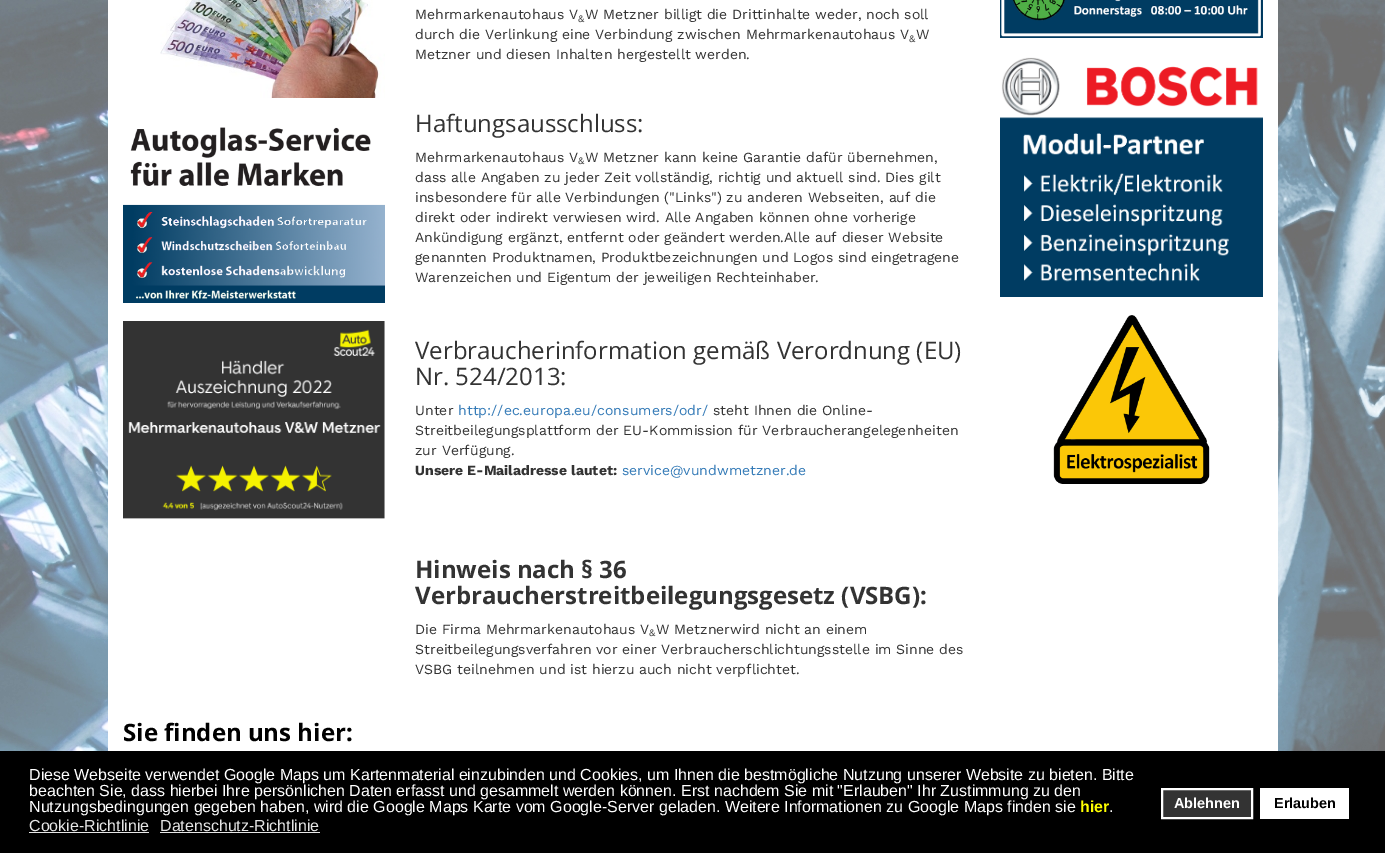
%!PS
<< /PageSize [1385 853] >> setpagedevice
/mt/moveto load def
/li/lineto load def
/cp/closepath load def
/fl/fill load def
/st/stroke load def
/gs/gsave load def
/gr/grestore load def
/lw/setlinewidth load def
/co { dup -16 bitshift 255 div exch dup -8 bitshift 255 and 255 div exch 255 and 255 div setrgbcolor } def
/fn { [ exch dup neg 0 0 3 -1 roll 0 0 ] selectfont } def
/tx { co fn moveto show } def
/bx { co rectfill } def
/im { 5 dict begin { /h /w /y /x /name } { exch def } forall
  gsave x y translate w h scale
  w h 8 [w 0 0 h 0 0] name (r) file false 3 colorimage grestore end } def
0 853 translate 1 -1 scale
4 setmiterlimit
0 0 1385 853 16#FFFFFF bx
(media/1.raw) 0 0 1385 751 im
108 0 1170 751 16#FFFFFF bx
(media/2.raw) 160 0 225 98 im
(media/3.raw) 123 127 262 176 im
(media/4.raw) 123 321 262 198 im
(media/5.raw) 1000 0 263 38 im
(media/6.raw) 1000 57 263 240 im
(media/7.raw) 1053 315 157 169 im
0 751 1385 102 16#000000 bx
29 832 120 1 16#E6E6E6 bx
160 832 160 1 16#E6E6E6 bx
16#333333 co
1162 789 mt 1252 789 li 1252 818 li 1162 818 li cp gs fl gr
16#FFFFFF co
2 lw
st
1260 788 89 31 16#FFFFFF bx
(Mehrmarkenautohaus V) 415 19 /WorkSans-Regular 14 16#333333 tx
(&) 578 22 /WorkSans-Regular 10 16#333333 tx
(W Metzner billigt die Drittinhalte weder, noch soll) 585 19 /WorkSans-Regular 14 16#333333 tx
(durch die Verlinkung eine Verbindung zwischen Mehrmarkenautohaus V) 415 39 /WorkSans-Regular 14 16#333333 tx
(&) 909 42 /WorkSans-Regular 10 16#333333 tx
(W) 916 39 /WorkSans-Regular 14 16#333333 tx
(Metzner und diesen Inhalten hergestellt werden.) 415 59 /WorkSans-Regular 14 16#333333 tx
(Haftungsausschluss:) 415 132 /OpenSans-Regular 24 16#333333 tx
(Mehrmarkenautohaus V) 415 162 /WorkSans-Regular 14 16#333333 tx
(&) 578 164 /WorkSans-Regular 10 16#333333 tx
(W Metzner kann keine Garantie dafür übernehmen,) 585 162 /WorkSans-Regular 14 16#333333 tx
(dass alle Angaben zu jeder Zeit vollständig, richtig und aktuell sind. Dies gilt) 415 182 /WorkSans-Regular 14 16#333333 tx
(insbesondere für alle Verbindungen \("Links"\) zu anderen Webseiten, auf die) 415 202 /WorkSans-Regular 14 16#333333 tx
(direkt oder indirekt verwiesen wird. Alle Angaben können ohne vorherige) 415 222 /WorkSans-Regular 14 16#333333 tx
(Ankündigung ergänzt, entfernt oder geändert werden.Alle auf dieser Website) 415 242 /WorkSans-Regular 14 16#333333 tx
(genannten Produktnamen, Produktbezeichnungen und Logos sind eingetragene) 415 262 /WorkSans-Regular 14 16#333333 tx
(Warenzeichen und Eigentum der jeweiligen Rechteinhaber.) 415 282 /WorkSans-Regular 14 16#333333 tx
(Verbraucherinformation gemäß Verordnung \(EU\)) 415 359 /OpenSans-Regular 24 16#333333 tx
(Nr. 524/2013:) 415 385 /OpenSans-Regular 24 16#333333 tx
(Unter) 415 415 /WorkSans-Regular 14 16#333333 tx
(http://ec.europa.eu/consumers/odr/) 458 415 /WorkSans-Regular 14 16#337AB7 tx
(steht Ihnen die Online-) 713 415 /WorkSans-Regular 14 16#333333 tx
(Streitbeilegungsplattform der EU-Kommission für Verbraucherangelegenheiten) 415 435 /WorkSans-Regular 14 16#333333 tx
(zur Verfügung.) 415 455 /WorkSans-Regular 14 16#333333 tx
(Unsere E-Mailadresse lautet:) 415 475 /WorkSans-Bold 14 16#333333 tx
(service@vundwmetzner.de) 622 475 /WorkSans-Regular 14 16#337AB7 tx
(Hinweis nach § 36) 415 578 /OpenSans-Bold 24 16#333333 tx
(Verbraucherstreitbeilegungsgesetz \(VSBG\):) 415 604 /OpenSans-Bold 24 16#333333 tx
(Die Firma Mehrmarkenautohaus V) 415 634 /WorkSans-Regular 14 16#333333 tx
(&) 649 636 /WorkSans-Regular 10 16#333333 tx
(W Metznerwird nicht an einem) 656 634 /WorkSans-Regular 14 16#333333 tx
(Streitbeilegungsverfahren vor einer Verbraucherschlichtungsstelle im Sinne des) 415 654 /WorkSans-Regular 14 16#333333 tx
(VSBG teilnehmen und ist hierzu auch nicht verpflichtet.) 415 674 /WorkSans-Regular 14 16#333333 tx
(Sie finden uns hier:) 123 741 /OpenSans-Bold 24 16#000000 tx
(Diese Webseite verwendet Google Maps um Kartenmaterial einzubinden und Cookies, um Ihnen die bestmögliche Nutzung unserer Website zu bieten. Bitte) 29 780 /LiberationSans-Regular 16 16#FFFFFF tx
(beachten Sie, dass hierbei Ihre persönlichen Daten erfasst und gesammelt werden können. Erst nachdem Sie mit "Erlauben" Ihr Zustimmung zu den) 29 796 /LiberationSans-Regular 16 16#FFFFFF tx
(Nutzungsbedingungen gegeben haben, wird die Google Maps Karte vom Google-Server geladen. Weitere Informationen zu Google Maps finden sie) 29 812 /LiberationSans-Regular 16 16#FFFFFF tx
(hier) 1080 812 /LiberationSans-Bold 16 16#FFFF00 tx
(.) 1109 812 /LiberationSans-Regular 16 16#FFFFFF tx
(Cookie-Richtlinie) 29 831 /LiberationSans-Regular 16 16#E6E6E6 tx
(Datenschutz-Richtlinie) 160 831 /LiberationSans-Regular 16 16#E6E6E6 tx
(Ablehnen) 1174 808 /LiberationSans-Bold 14.5 16#FFFFFF tx
(Erlauben) 1274 808 /LiberationSans-Bold 14.5 16#000000 tx
showpage
